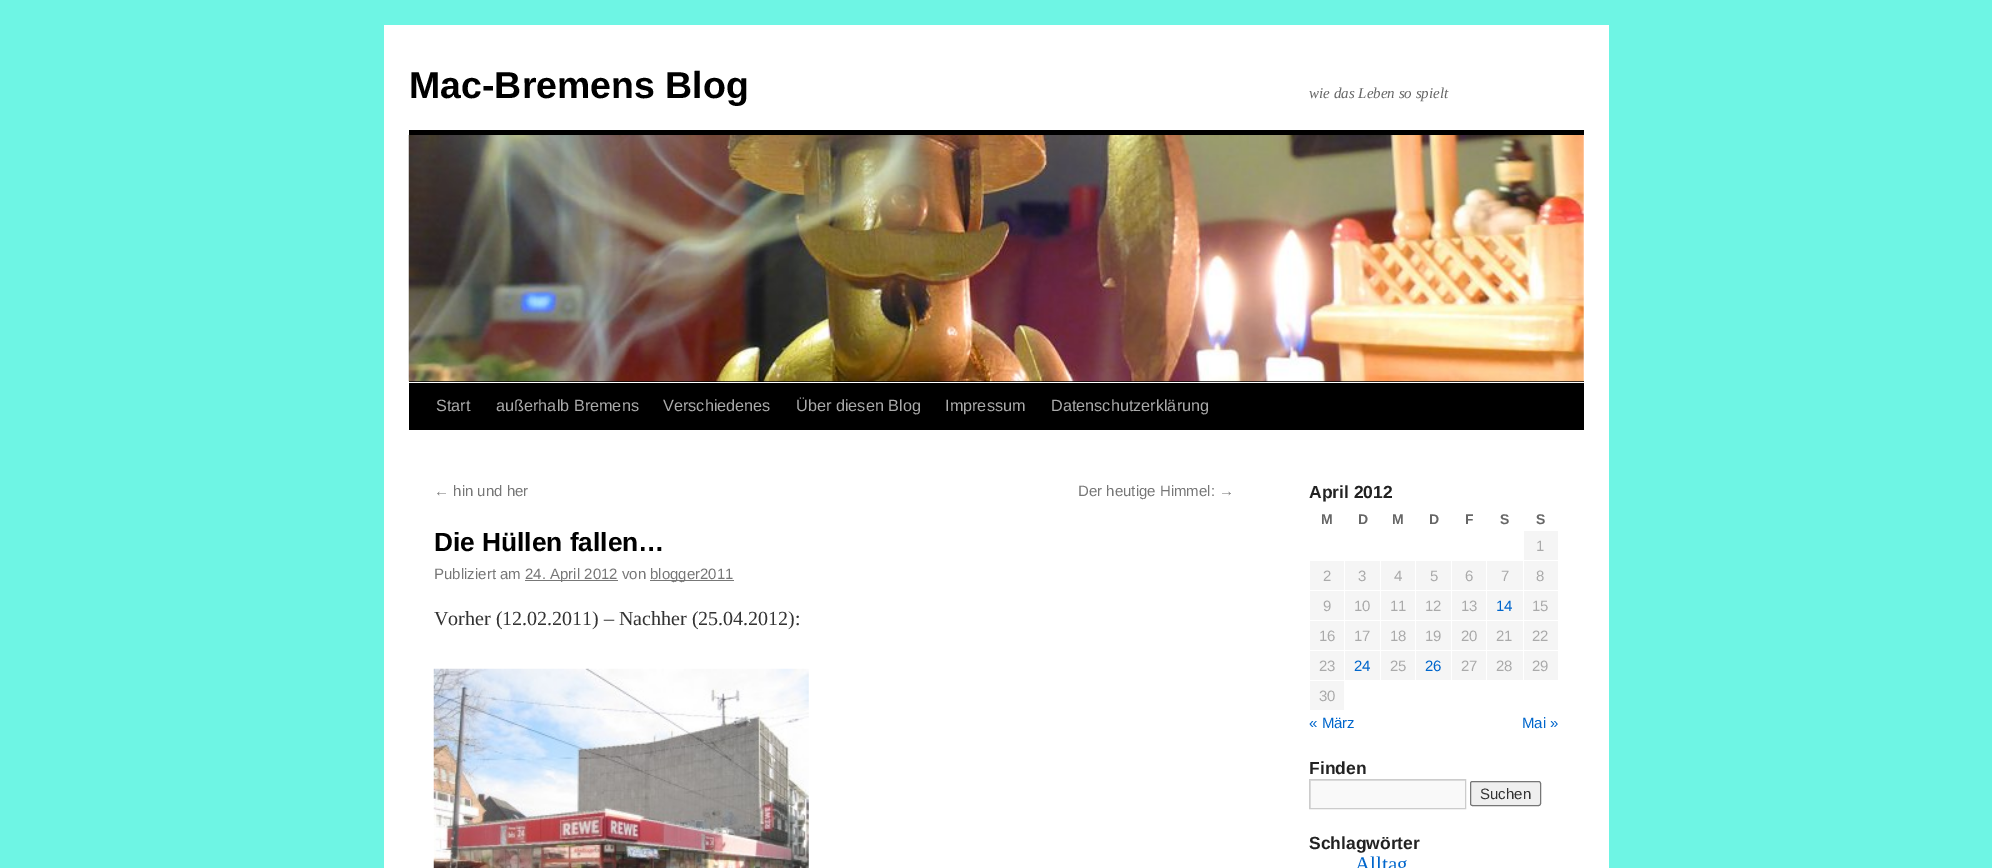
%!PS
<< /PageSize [1992 868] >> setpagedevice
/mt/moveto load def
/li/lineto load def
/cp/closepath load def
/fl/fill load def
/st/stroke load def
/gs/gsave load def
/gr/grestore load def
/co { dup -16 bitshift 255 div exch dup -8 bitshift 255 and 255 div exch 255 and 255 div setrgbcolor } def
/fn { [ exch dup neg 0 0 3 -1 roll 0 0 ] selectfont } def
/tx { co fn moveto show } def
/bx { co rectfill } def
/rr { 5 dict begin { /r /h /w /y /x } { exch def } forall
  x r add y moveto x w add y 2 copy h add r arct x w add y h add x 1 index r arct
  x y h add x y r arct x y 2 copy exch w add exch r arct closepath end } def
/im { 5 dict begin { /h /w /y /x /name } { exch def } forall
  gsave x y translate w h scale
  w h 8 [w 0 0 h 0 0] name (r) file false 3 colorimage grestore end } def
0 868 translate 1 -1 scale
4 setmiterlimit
0 0 1992 868 16#6EF5E4 bx
384 25 1225 843 16#FFFFFF bx
409 130 1175 5 16#000000 bx
409 381 1175 1 16#000000 bx
(media/1.raw) 408 135 1176 247 im
409 383 1175 47 16#000000 bx
525 580 93 1 16#777777 bx
650 580 84 1 16#777777 bx
(media/2.raw) 433 668 376 200 im
1524 531 34 29 16#F5F5F5 bx
1310 561 34 29 16#F5F5F5 bx
1345 561 35 29 16#F5F5F5 bx
1381 561 34 29 16#F5F5F5 bx
1416 561 35 29 16#F5F5F5 bx
1452 561 71 29 16#F5F5F5 bx
1524 561 34 29 16#F5F5F5 bx
1310 591 34 29 16#F5F5F5 bx
1345 591 35 29 16#F5F5F5 bx
1381 591 34 29 16#F5F5F5 bx
1416 591 35 29 16#F5F5F5 bx
1452 591 71 29 16#F5F5F5 bx
1524 591 34 29 16#F5F5F5 bx
1310 621 34 29 16#F5F5F5 bx
1345 621 35 29 16#F5F5F5 bx
1381 621 34 29 16#F5F5F5 bx
1416 621 35 29 16#F5F5F5 bx
1452 621 71 29 16#F5F5F5 bx
1524 621 34 29 16#F5F5F5 bx
1310 651 34 29 16#F5F5F5 bx
1345 651 35 29 16#F5F5F5 bx
1381 651 34 29 16#F5F5F5 bx
1416 651 35 29 16#F5F5F5 bx
1452 651 71 29 16#F5F5F5 bx
1486 560 1 121 16#FFFFFF bx
1524 651 34 29 16#F5F5F5 bx
1310 681 34 29 16#F5F5F5 bx
1311 781 154 27 16#F9F9F9 bx
gs
1310 780 155 28 rectclip
16#E0E0E0 co
1186 656 mt 1589 656 li 1589 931 li 1186 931 li cp 1311 781 mt 1466 781 li 1466 809 li 1311 809 li cp eofill
gr
16#CCCCCC co
1309.5 779.5 156 29 rectstroke
16#EFEFEF co
1470.5 781.5 70 24 2 rr gs fl gr
16#767676 co
st
(Mac-Bremens Blog) 409 98 /LiberationSans-Bold 37.5 16#000000 tx
(wie das Leben so spielt) 1309 98 /LiberationSerif-Italic 15 16#666666 tx
(Start) 436 411 /LiberationSans-Regular 16.25 16#AAAAAA tx
(außerhalb Bremens) 496 411 /LiberationSans-Regular 16.25 16#AAAAAA tx
(Verschiedenes) 663 411 /LiberationSans-Regular 16.25 16#AAAAAA tx
(Über diesen Blog) 796 411 /LiberationSans-Regular 16.25 16#AAAAAA tx
(Impressum) 945 411 /LiberationSans-Regular 16.25 16#AAAAAA tx
(Datenschutzerklärung) 1051 411 /LiberationSans-Regular 16.25 16#AAAAAA tx
(← hin und her) 434 496 /LiberationSans-Regular 15 16#777777 tx
(Der heutige Himmel: →) 1078 496 /LiberationSans-Regular 15 16#777777 tx
(Die Hüllen fallen…) 434 551 /LiberationSans-Bold 26.25 16#000000 tx
(Publiziert am) 434 579 /LiberationSans-Regular 15 16#777777 tx
(24. April 2012 von) 525 579 /LiberationSans-Regular 15 16#777777 tx
(blogger2011) 650 579 /LiberationSans-Regular 15 16#777777 tx
(Vorher \(12.02.2011\) – Nachher \(25.04.2012\):) 434 625 /LiberationSerif-Regular 20 16#333333 tx
(April 2012) 1309 498 /LiberationSans-Bold 17.5 16#222222 tx
(M) 1321 524 /LiberationSans-Bold 14 16#666666 tx
(D) 1358 524 /LiberationSans-Bold 14 16#666666 tx
(M) 1392 524 /LiberationSans-Bold 14 16#666666 tx
(D) 1429 524 /LiberationSans-Bold 14 16#666666 tx
(F) 1465 524 /LiberationSans-Bold 14 16#666666 tx
(S) 1500 524 /LiberationSans-Bold 14 16#666666 tx
(S) 1536 524 /LiberationSans-Bold 14 16#666666 tx
(1) 1536 551 /LiberationSans-Regular 15 16#AAAAAA tx
(2) 1323 581 /LiberationSans-Regular 15 16#AAAAAA tx
(3) 1358 581 /LiberationSans-Regular 15 16#AAAAAA tx
(4) 1394 581 /LiberationSans-Regular 15 16#AAAAAA tx
(5) 1430 581 /LiberationSans-Regular 15 16#AAAAAA tx
(6) 1465 581 /LiberationSans-Regular 15 16#AAAAAA tx
(7) 1501 581 /LiberationSans-Regular 15 16#AAAAAA tx
(8) 1536 581 /LiberationSans-Regular 15 16#AAAAAA tx
(9) 1323 611 /LiberationSans-Regular 15 16#AAAAAA tx
(10) 1354 611 /LiberationSans-Regular 15 16#AAAAAA tx
(11) 1390 611 /LiberationSans-Regular 15 16#AAAAAA tx
(12) 1425 611 /LiberationSans-Regular 15 16#AAAAAA tx
(13) 1461 611 /LiberationSans-Regular 15 16#AAAAAA tx
(14) 1496 611 /LiberationSans-Regular 15 16#0066CC tx
(15) 1532 611 /LiberationSans-Regular 15 16#AAAAAA tx
(16) 1319 641 /LiberationSans-Regular 15 16#AAAAAA tx
(17) 1354 641 /LiberationSans-Regular 15 16#AAAAAA tx
(18) 1390 641 /LiberationSans-Regular 15 16#AAAAAA tx
(19) 1425 641 /LiberationSans-Regular 15 16#AAAAAA tx
(20) 1461 641 /LiberationSans-Regular 15 16#AAAAAA tx
(21) 1496 641 /LiberationSans-Regular 15 16#AAAAAA tx
(22) 1532 641 /LiberationSans-Regular 15 16#AAAAAA tx
(23) 1319 671 /LiberationSans-Regular 15 16#AAAAAA tx
(24) 1354 671 /LiberationSans-Regular 15 16#0066CC tx
(25) 1390 671 /LiberationSans-Regular 15 16#AAAAAA tx
(26) 1425 671 /LiberationSans-Regular 15 16#0066CC tx
(27) 1461 671 /LiberationSans-Regular 15 16#AAAAAA tx
(28) 1496 671 /LiberationSans-Regular 15 16#AAAAAA tx
(29) 1532 671 /LiberationSans-Regular 15 16#AAAAAA tx
(30) 1319 701 /LiberationSans-Regular 15 16#AAAAAA tx
(« März) 1309 728 /LiberationSans-Regular 15 16#0066CC tx
(Mai ») 1522 728 /LiberationSans-Regular 15 16#0066CC tx
(Finden) 1309 774 /LiberationSans-Bold 17.5 16#222222 tx
(Suchen) 1480 799 /LiberationSans-Regular 15 16#333333 tx
(Schlagwörter) 1309 849 /LiberationSans-Bold 17.5 16#222222 tx
(Alltag) 1355 871 /LiberationSerif-Regular 21 16#0066CC tx
showpage
